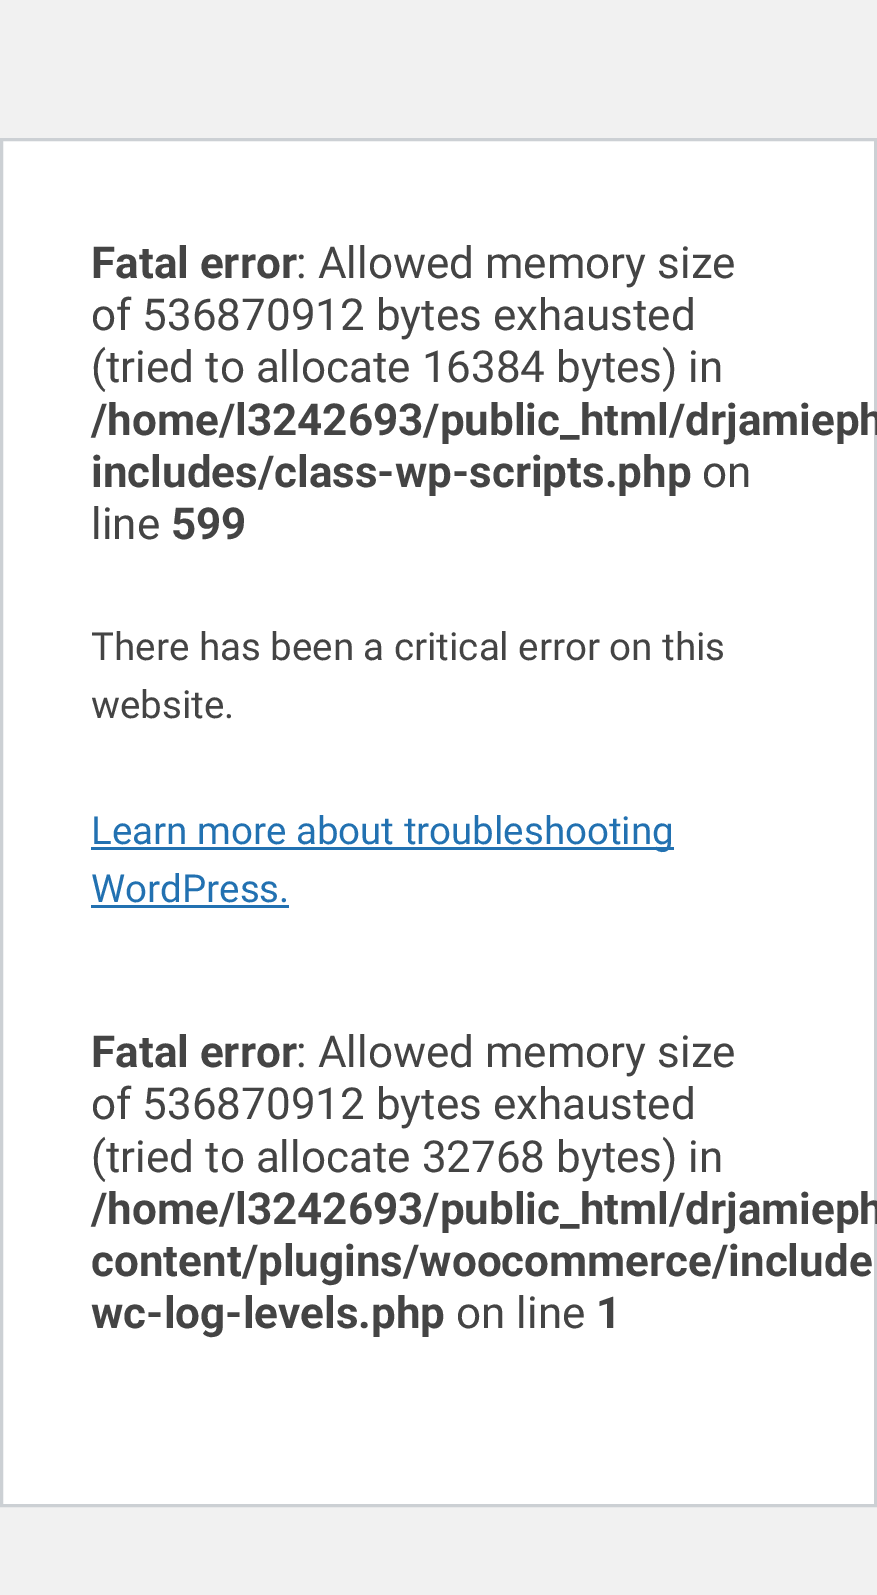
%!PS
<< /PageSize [877 1595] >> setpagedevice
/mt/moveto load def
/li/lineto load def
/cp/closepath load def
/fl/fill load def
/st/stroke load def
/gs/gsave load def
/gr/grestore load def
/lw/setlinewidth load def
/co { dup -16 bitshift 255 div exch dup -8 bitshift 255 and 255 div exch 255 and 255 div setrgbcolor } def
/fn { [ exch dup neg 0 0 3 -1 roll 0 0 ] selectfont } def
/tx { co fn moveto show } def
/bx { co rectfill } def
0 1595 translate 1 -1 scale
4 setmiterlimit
0 0 877 1595 16#F1F1F1 bx
16#FFFFFF co
1.5 139.5 mt 875.5 139.5 li 875.5 1505.5 li 1.5 1505.5 li cp gs fl gr
16#CCD0D4 co
3 lw
st
91 847 583 3 16#2271B1 bx
91 905 198 3 16#2271B1 bx
(Fatal error) 91 278 /Roboto-Bold 44 16#444444 tx
(: Allowed memory size) 296 278 /Roboto-Regular 44 16#444444 tx
(of 536870912 bytes exhausted) 91 330 /Roboto-Regular 44 16#444444 tx
(\(tried to allocate 16384 bytes\) in) 91 382 /Roboto-Regular 44 16#444444 tx
(/home/l3242693/public_html/drjamieph) 91 435 /Roboto-Bold 44 16#444444 tx
(includes/class-wp-scripts.php) 91 487 /Roboto-Bold 44 16#444444 tx
(on) 702 487 /Roboto-Regular 44 16#444444 tx
(line) 91 539 /Roboto-Regular 44 16#444444 tx
(599) 171 539 /Roboto-Bold 44 16#444444 tx
(There has been a critical error on this) 91 660 /Roboto-Regular 38.5 16#444444 tx
(website.) 91 718 /Roboto-Regular 38.5 16#444444 tx
(Learn more about troubleshooting) 91 844 /Roboto-Regular 38.5 16#2271B1 tx
(WordPress.) 91 902 /Roboto-Regular 38.5 16#2271B1 tx
(Fatal error) 91 1067 /Roboto-Bold 44 16#444444 tx
(: Allowed memory size) 296 1067 /Roboto-Regular 44 16#444444 tx
(of 536870912 bytes exhausted) 91 1119 /Roboto-Regular 44 16#444444 tx
(\(tried to allocate 32768 bytes\) in) 91 1172 /Roboto-Regular 44 16#444444 tx
(/home/l3242693/public_html/drjamieph) 91 1224 /Roboto-Bold 44 16#444444 tx
(content/plugins/woocommerce/include) 91 1276 /Roboto-Bold 44 16#444444 tx
(wc-log-levels.php) 91 1328 /Roboto-Bold 44 16#444444 tx
(on line) 456 1328 /Roboto-Regular 44 16#444444 tx
(1) 596 1328 /Roboto-Bold 44 16#444444 tx
showpage
